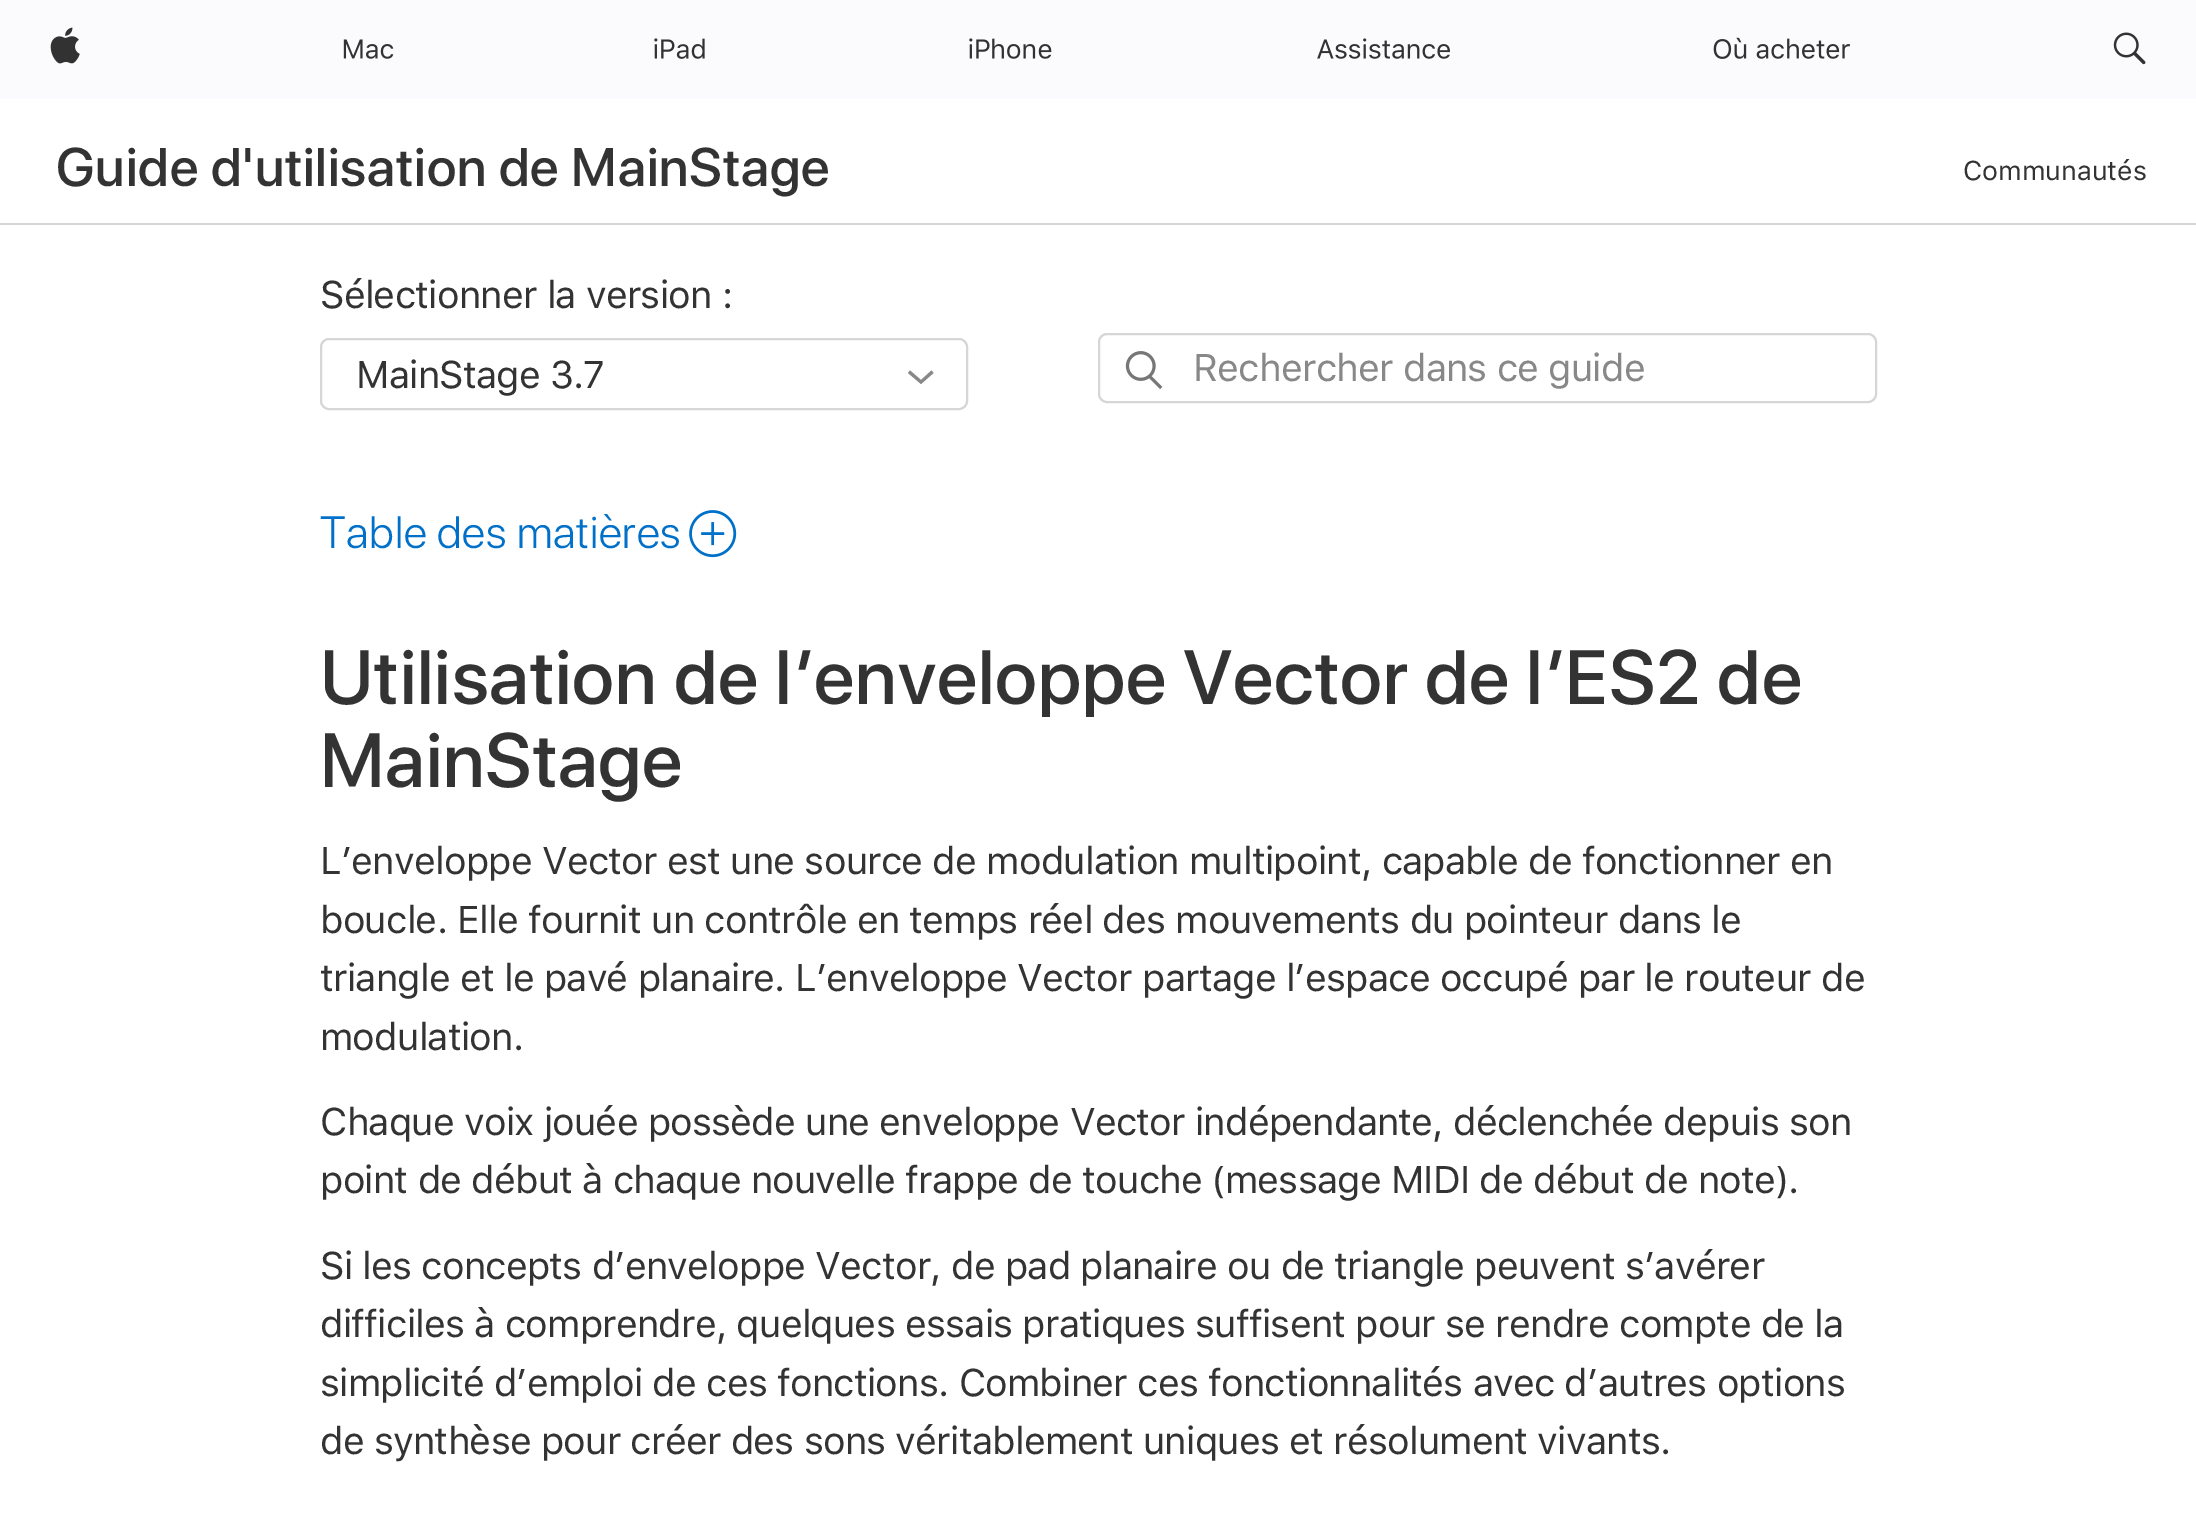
%!PS
<< /PageSize [2196 1521] >> setpagedevice
/mt/moveto load def
/li/lineto load def
/cp/closepath load def
/fl/fill load def
/st/stroke load def
/lw/setlinewidth load def
/co { dup -16 bitshift 255 div exch dup -8 bitshift 255 and 255 div exch 255 and 255 div setrgbcolor } def
/fn { [ exch dup neg 0 0 3 -1 roll 0 0 ] selectfont } def
/tx { co fn moveto show } def
/bx { co rectfill } def
/rr { 5 dict begin { /r /h /w /y /x } { exch def } forall
  x r add y moveto x w add y 2 copy h add r arct x w add y h add x 1 index r arct
  x y h add x y r arct x y 2 copy exch w add exch r arct closepath end } def
/im { 5 dict begin { /h /w /y /x /name } { exch def } forall
  gsave x y translate w h scale
  w h 8 [w 0 0 h 0 0] name (r) file false 3 colorimage grestore end } def
0 1521 translate 1 -1 scale
4 setmiterlimit
0 0 2196 1521 16#FFFFFF bx
0 0 2196 99 16#FBFBFD bx
(media/1.raw) 50 27 30 37 im
(media/2.raw) 343 39 51 20 im
(media/3.raw) 654 38 51 21 im
(media/4.raw) 969 38 83 21 im
(media/5.raw) 1317 38 133 21 im
(media/6.raw) 1713 37 137 22 im
(media/7.raw) 2113 32 33 33 im
0 223 2196 2 16#D6D6D6 bx
2 lw
321 339 646 70 8 rr st
16#888888 co
910 370.5 mt 908 373 li 921 384 li 933.5 373 li 931.5 370.5 li 921 380 li cp fl
16#D6D6D6 co
1099 334 777 68 8 rr st
(media/8.raw) 1125 351 38 39 im
(media/9.raw) 689 510 48 48 im
/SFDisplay-Medium 54 fn
16#333333 co
56 186 mt .8 0 (Guide d'utilisation de MainStage) ashow
(Communautés) 1963 180 /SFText-Regular 27 16#333333 tx
/SFText-Regular 38.25 fn
320 308 mt -.8 0 (Sélectionner la version :) ashow
356 388 mt -.8 0 (MainStage 3.7) ashow
16#888888 co
1193 381 mt -.8 0 (Rechercher dans ce guide) ashow
/SFDisplay-Light 45 fn
16#0070C9 co
320 548 mt .75 0 (Table des matières) ashow
/SFDisplay-Medium 76.5 fn
16#333333 co
320 704 mt .75 0 (Utilisation de l’enveloppe Vector de l’ES2 de) ashow
320 787 mt .75 0 (MainStage) ashow
/SFText-Regular 38.25 fn
320 874 mt -.8 0 (L’enveloppe Vector est une source de modulation multipoint, capable de fonctionner en) ashow
320 933 mt -.8 0 (boucle. Elle fournit un contrôle en temps réel des mouvements du pointeur dans le) ashow
320 991 mt -.8 0 (triangle et le pavé planaire. L’enveloppe Vector partage l’espace occupé par le routeur de) ashow
320 1050 mt -.8 0 (modulation.) ashow
320 1135 mt -.8 0 (Chaque voix jouée possède une enveloppe Vector indépendante, déclenchée depuis son) ashow
320 1193 mt -.8 0 (point de début à chaque nouvelle frappe de touche \(message MIDI de début de note\).) ashow
320 1279 mt -.8 0 (Si les concepts d’enveloppe Vector, de pad planaire ou de triangle peuvent s’avérer) ashow
320 1337 mt -.8 0 (difficiles à comprendre, quelques essais pratiques suffisent pour se rendre compte de la) ashow
320 1396 mt -.8 0 (simplicité d’emploi de ces fonctions. Combiner ces fonctionnalités avec d’autres options) ashow
320 1454 mt -.8 0 (de synthèse pour créer des sons véritablement uniques et résolument vivants.) ashow
showpage
